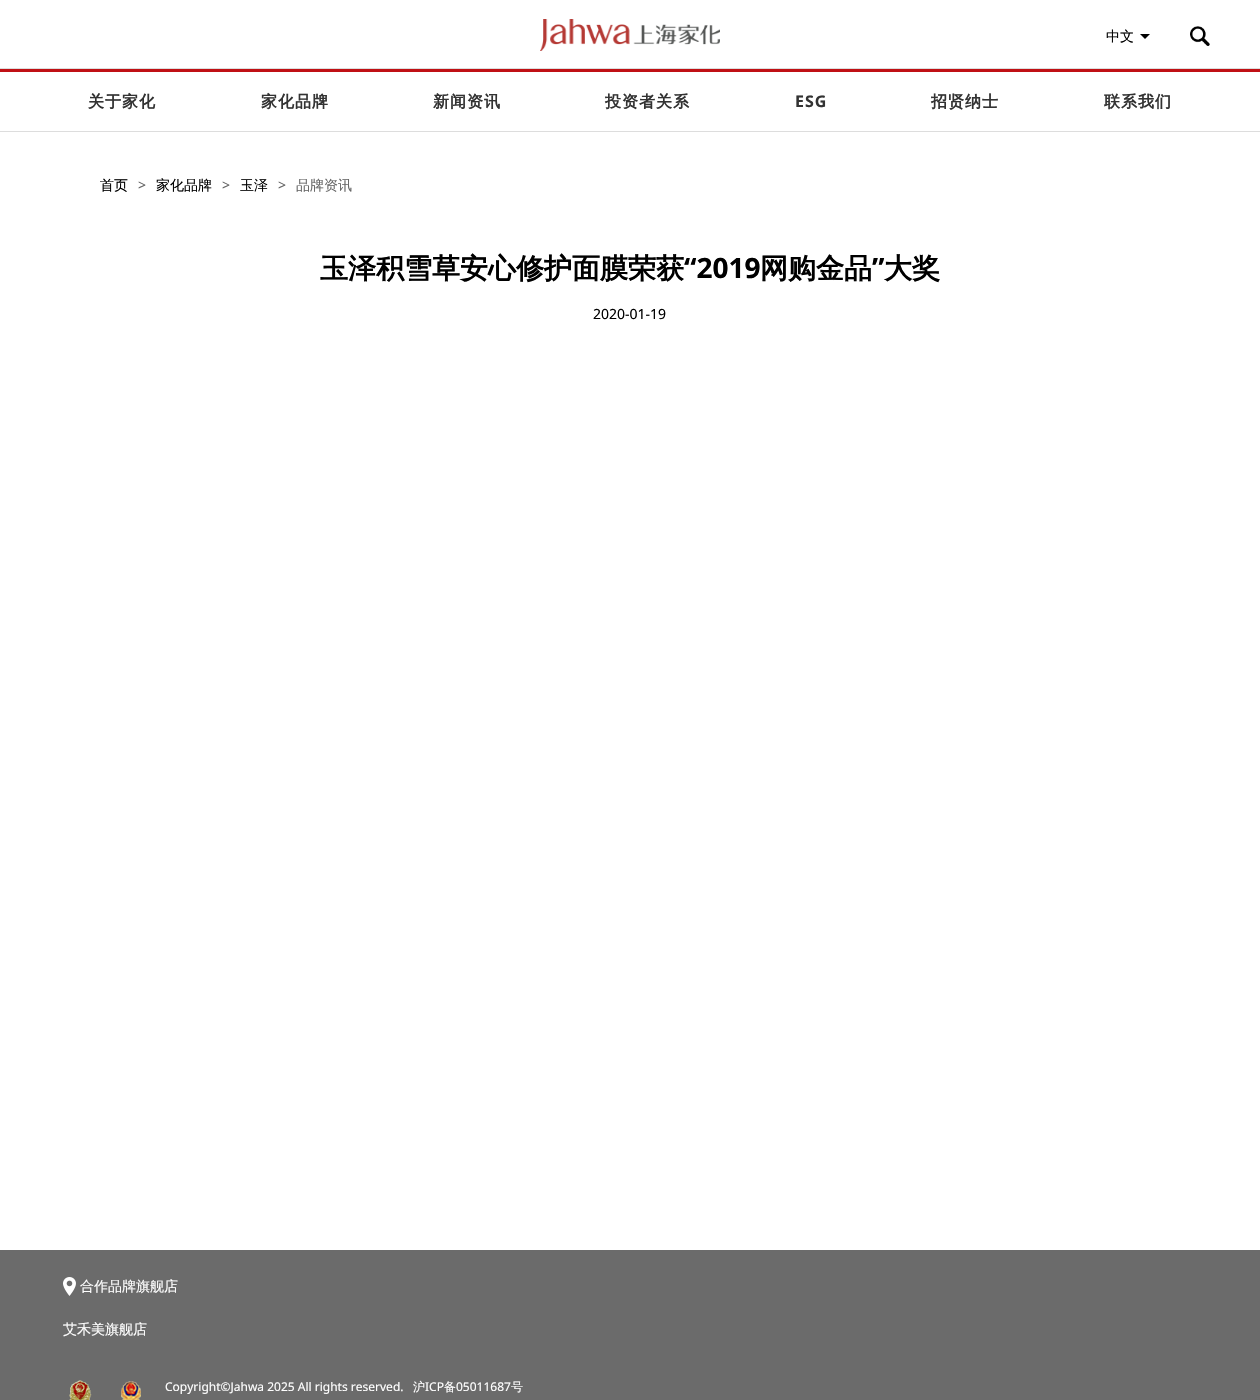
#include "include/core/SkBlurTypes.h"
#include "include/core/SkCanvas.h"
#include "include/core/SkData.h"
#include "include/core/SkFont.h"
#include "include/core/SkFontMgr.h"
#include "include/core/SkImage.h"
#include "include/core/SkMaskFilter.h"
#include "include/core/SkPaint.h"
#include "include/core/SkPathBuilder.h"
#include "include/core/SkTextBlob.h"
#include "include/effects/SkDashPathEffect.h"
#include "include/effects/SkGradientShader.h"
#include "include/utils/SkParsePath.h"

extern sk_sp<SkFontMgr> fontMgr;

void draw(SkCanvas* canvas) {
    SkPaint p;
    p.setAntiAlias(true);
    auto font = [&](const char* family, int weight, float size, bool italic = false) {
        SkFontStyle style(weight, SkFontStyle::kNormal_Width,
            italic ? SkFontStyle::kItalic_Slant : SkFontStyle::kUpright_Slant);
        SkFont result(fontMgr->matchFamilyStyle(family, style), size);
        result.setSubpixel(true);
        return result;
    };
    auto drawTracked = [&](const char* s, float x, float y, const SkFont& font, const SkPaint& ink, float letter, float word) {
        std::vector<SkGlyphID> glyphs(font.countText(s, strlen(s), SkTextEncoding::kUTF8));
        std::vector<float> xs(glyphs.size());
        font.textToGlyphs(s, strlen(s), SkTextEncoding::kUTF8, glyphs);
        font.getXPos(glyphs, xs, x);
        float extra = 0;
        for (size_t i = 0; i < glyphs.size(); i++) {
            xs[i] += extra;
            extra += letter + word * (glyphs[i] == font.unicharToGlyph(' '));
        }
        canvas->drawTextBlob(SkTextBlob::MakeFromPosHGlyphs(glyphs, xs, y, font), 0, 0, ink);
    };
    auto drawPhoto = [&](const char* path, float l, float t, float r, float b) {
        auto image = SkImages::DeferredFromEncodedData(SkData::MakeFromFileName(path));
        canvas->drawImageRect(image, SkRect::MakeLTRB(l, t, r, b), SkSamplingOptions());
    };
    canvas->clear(0xFFFFFFFF);
    p.setColor(0xFFDDDDDD);
    canvas->drawRect(SkRect::MakeLTRB(0, 68, 1260, 69), p);
    drawPhoto("media/1.png", 540, 19, 720, 51);
    auto font1 = font("WenQuanYi Zen Hei", 500, 14);
    p.setColor(0xFF000000);
    canvas->drawString("中文", 1106, 41, font1, p);
    canvas->drawPath(SkPathBuilder().moveTo(1140, 34).lineTo(1150, 34).lineTo(1145, 39).close().detach(), p);
    drawPhoto("media/2.png", 1190, 26, 1210, 46);
    p.setColor(0xFFC01015);
    canvas->drawRect(SkRect::MakeLTRB(0, 69, 1260, 72), p);
    p.setColor(0xFFDDDDDD);
    canvas->drawRect(SkRect::MakeLTRB(0, 131, 1260, 132), p);
    auto font2 = font("WenQuanYi Zen Hei", 700, 16);
    p.setColor(0xFF333333);
    {
        const struct { const char* s; float x, y; } items[] = {
            {"关于家化", 88, 107},
            {"家化品牌", 261, 107},
            {"新闻资讯", 433, 107},
            {"投资者关系", 605, 107},
        };
        for (auto [s, x, y] : items) {
            drawTracked(s, x, y, font2, p, 1, 0);
        }
    }
    auto font3 = font("Noto Sans", 700, 16);
    drawTracked("ESG", 795, 107, font3, p, 1, 0);
    drawTracked("招贤纳士", 931, 107, font2, p, 1, 0);
    drawTracked("联系我们", 1104, 107, font2, p, 1, 0);
    p.setColor(0xFF000000);
    canvas->drawString("首页", 100, 190, font1, p);
    auto font4 = font("Noto Sans", 400, 14);
    p.setColor(0xFF666666);
    canvas->drawString(">", 138, 190, font4, p);
    p.setColor(0xFF000000);
    canvas->drawString("家化品牌", 156, 190, font1, p);
    p.setColor(0xFF666666);
    canvas->drawString(">", 222, 190, font4, p);
    p.setColor(0xFF000000);
    canvas->drawString("玉泽", 240, 190, font1, p);
    p.setColor(0xFF666666);
    canvas->drawString(">", 278, 190, font4, p);
    canvas->drawString("品牌资讯", 296, 190, font1, p);
    auto font5 = font("WenQuanYi Zen Hei", 700, 28);
    p.setColor(0xFF000000);
    canvas->drawString("玉泽积雪草安心修护面膜荣获", 320, 278, font5, p);
    auto font6 = font("Noto Sans", 700, 28);
    canvas->drawString("“2019", 684, 278, font6, p);
    canvas->drawString("网购金品", 760, 278, font5, p);
    canvas->drawString("”", 872, 278, font6, p);
    canvas->drawString("大奖", 884, 278, font5, p);
    canvas->drawString("2020-01-19", 593, 319, font4, p);
    p.setColor(0xFF6B6B6B);
    canvas->drawRect(SkRect::MakeLTRB(0, 1250, 1260, 1400), p);
    drawPhoto("media/3.png", 63, 1277, 76, 1296);
    p.setColor(0xFFFFFFFF);
    canvas->drawString("合作品牌旗舰店", 80, 1291, font1, p);
    canvas->drawString("艾禾美旗舰店", 63, 1334, font1, p);
    drawPhoto("media/4.png", 69, 1380, 92, 1400);
    drawPhoto("media/5.png", 121, 1381, 141, 1400);
    auto font7 = font("Noto Sans", 400, 12);
    canvas->drawString("Copyright©Jahwa 2025 All rights reserved.", 165, 1391, font7, p);
    auto font8 = font("WenQuanYi Zen Hei", 500, 12);
    canvas->drawString("沪", 413, 1391, font8, p);
    canvas->drawString("ICP", 425, 1391, font7, p);
    canvas->drawString("备", 444, 1391, font8, p);
    canvas->drawString("05011687", 456, 1391, font7, p);
    canvas->drawString("号", 511, 1391, font8, p);
}
